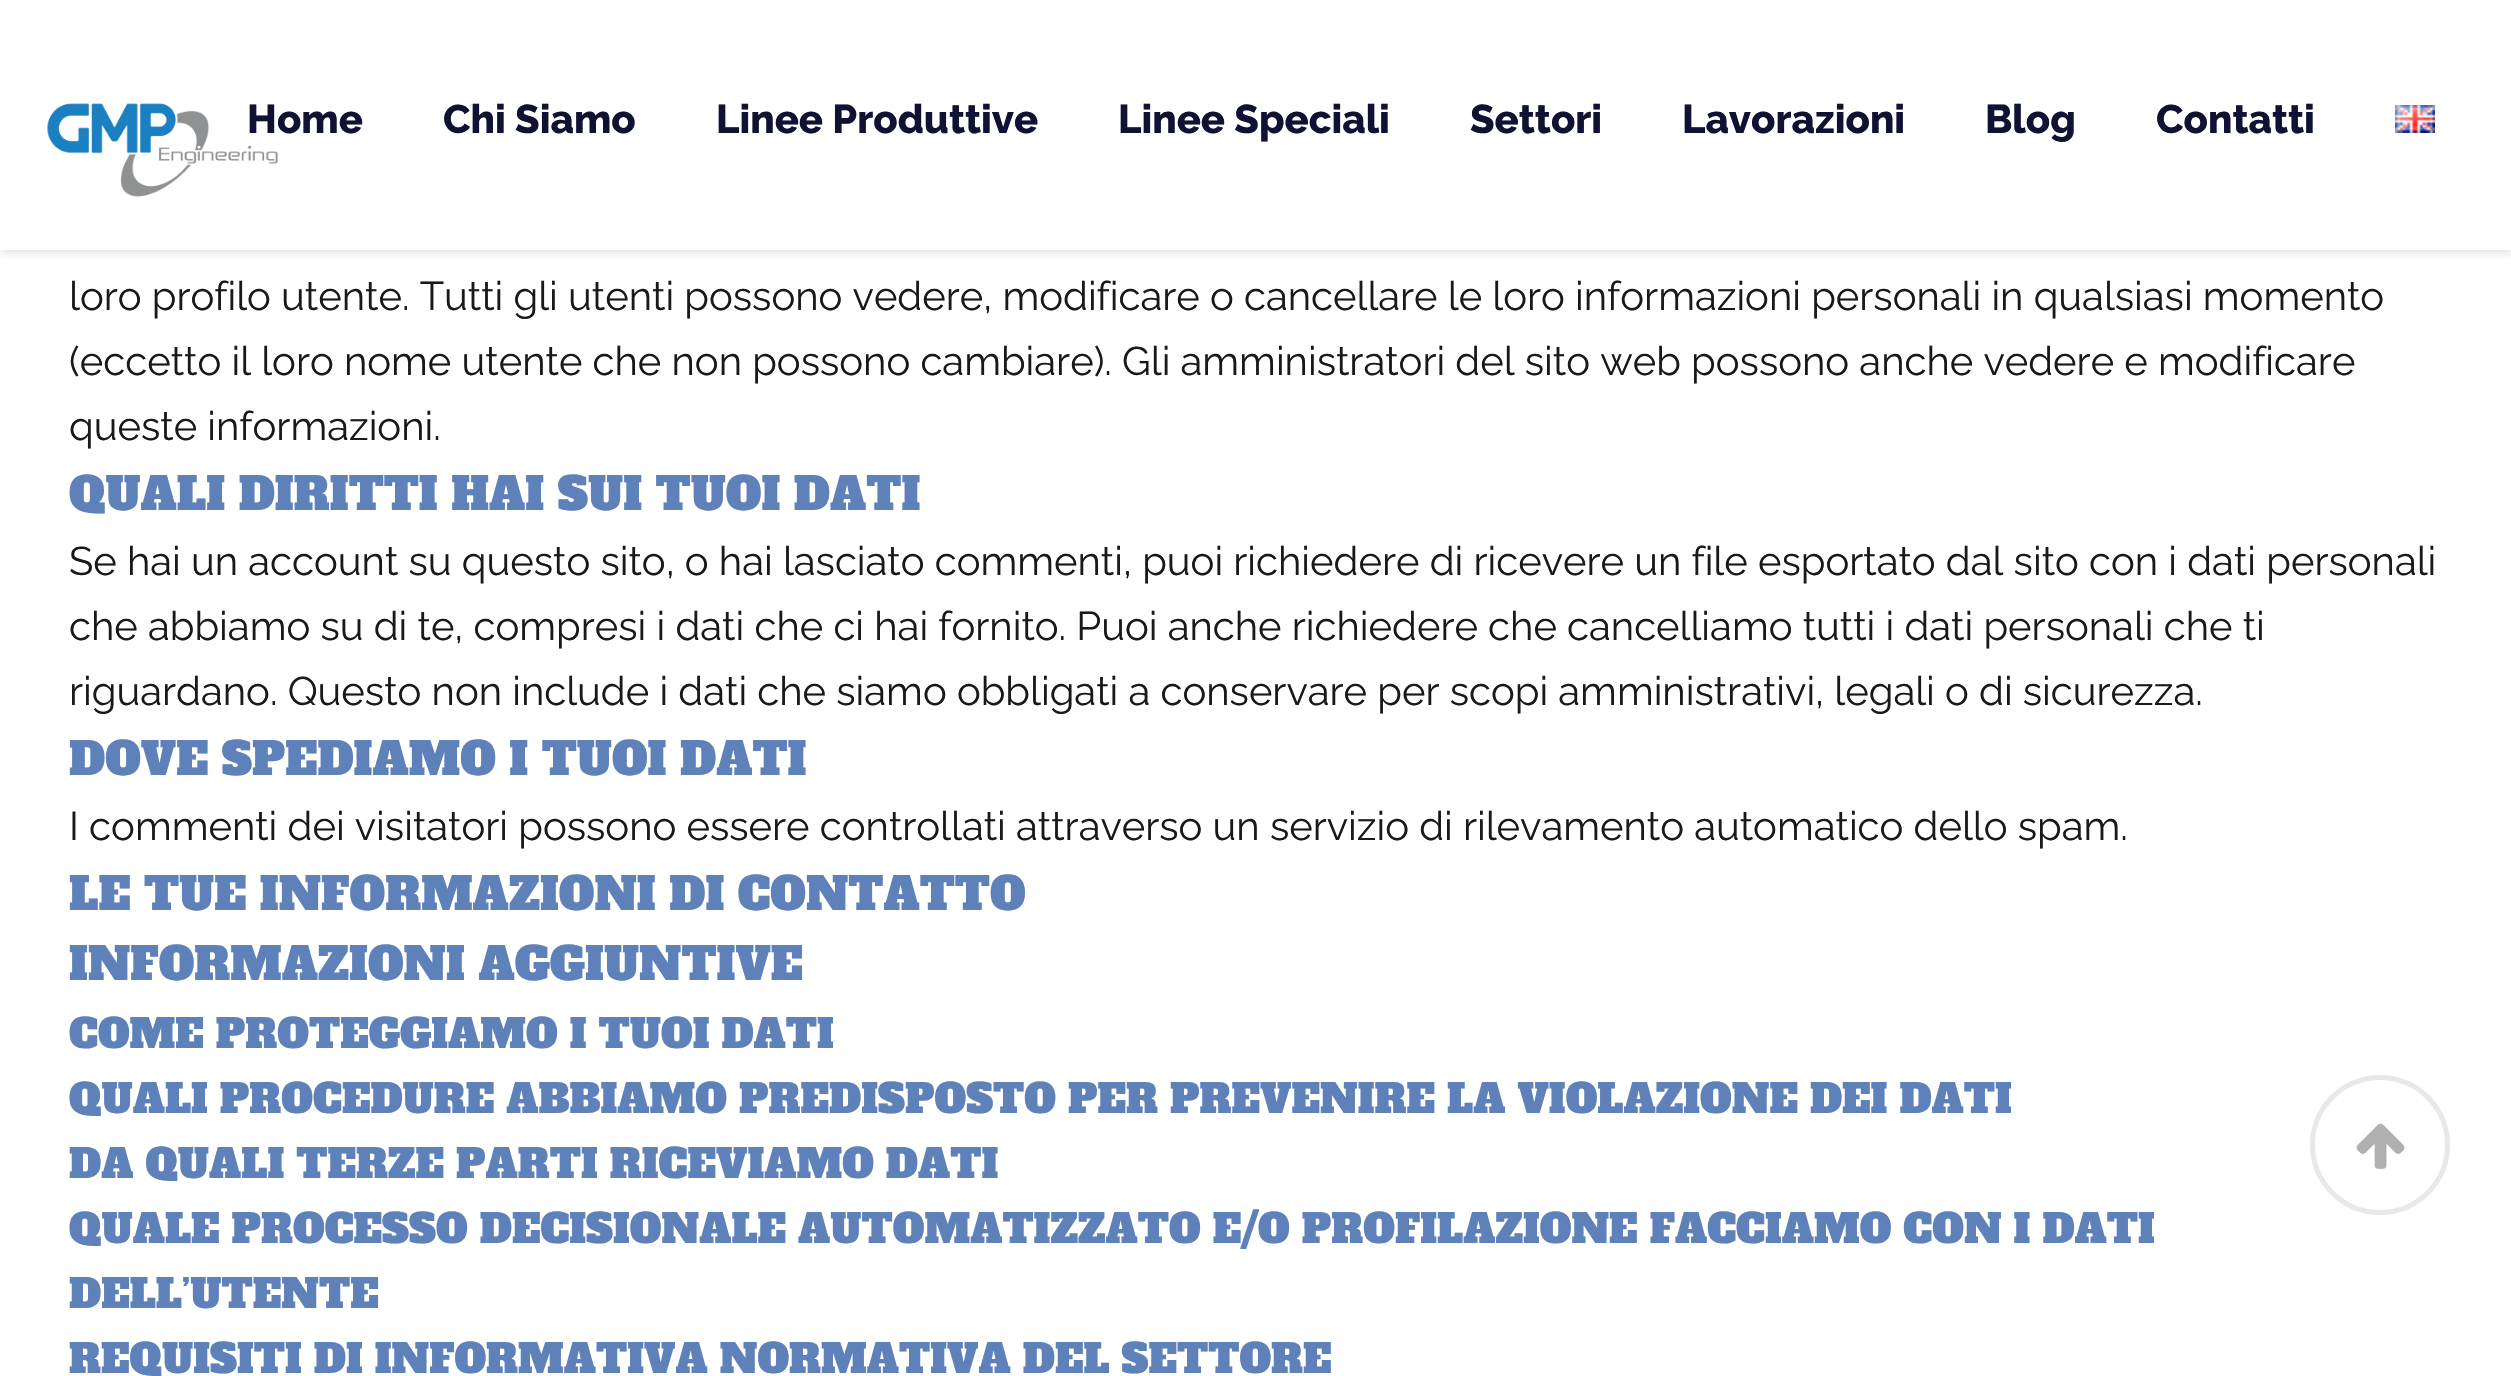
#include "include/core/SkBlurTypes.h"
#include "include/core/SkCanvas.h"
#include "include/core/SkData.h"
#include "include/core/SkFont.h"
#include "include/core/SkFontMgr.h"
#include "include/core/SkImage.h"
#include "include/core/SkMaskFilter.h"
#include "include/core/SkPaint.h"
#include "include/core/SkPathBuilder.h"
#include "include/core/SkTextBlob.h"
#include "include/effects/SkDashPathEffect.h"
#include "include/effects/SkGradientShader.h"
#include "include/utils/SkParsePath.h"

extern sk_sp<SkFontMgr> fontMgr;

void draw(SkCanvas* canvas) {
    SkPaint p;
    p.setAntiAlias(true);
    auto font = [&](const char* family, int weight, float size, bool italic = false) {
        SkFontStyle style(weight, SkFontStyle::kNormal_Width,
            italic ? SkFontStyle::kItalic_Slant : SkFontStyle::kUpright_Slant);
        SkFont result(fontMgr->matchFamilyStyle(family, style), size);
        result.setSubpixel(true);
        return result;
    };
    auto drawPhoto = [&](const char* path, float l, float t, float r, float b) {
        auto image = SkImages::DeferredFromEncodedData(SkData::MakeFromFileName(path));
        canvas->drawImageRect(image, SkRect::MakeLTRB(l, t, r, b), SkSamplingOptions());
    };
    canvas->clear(0xFFFFFFFF);
    p.setColor(0x1C000000);
    p.setMaskFilter(SkMaskFilter::MakeBlur(kNormal_SkBlurStyle, 4));
    canvas->drawRect(SkRect::MakeLTRB(0, 3, 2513, 253), p);
    p.setMaskFilter(nullptr);
    p.setColor(0xFFFFFFFF);
    canvas->drawRect(SkRect::MakeLTRB(0, 0, 2511, 250), p);
    drawPhoto("media/1.png", 47, 103, 278, 197);
    auto font1 = font("Raleway", 800, 40);
    p.setColor(0xFF0F1232);
    {
        const struct { const char* s; float x, y; } items[] = {
            {"Home", 247, 133},
            {"Chi Siamo", 443, 133},
            {"Linee Produttive", 716, 133},
            {"Linee Speciali", 1118, 133},
            {"Settori", 1470, 133},
            {"Lavorazioni", 1682, 133},
            {"Blog", 1985, 133},
            {"Contatti", 2156, 133},
        };
        for (auto [s, x, y] : items) {
            canvas->drawString(s, x, y, font1, p);
        }
    }
    drawPhoto("media/2.png", 2395, 105, 2435, 133);
    auto font2 = font("Raleway", 400, 40);
    p.setColor(0xFF191919);
    {
        const struct { const char* s; float x, y; } items[] = {
            {"loro profilo utente. Tutti gli utenti possono vedere, modificare o cancellare le loro informazioni personali in qualsiasi momento", 69, 310},
            {"(eccetto il loro nome utente che non possono cambiare). Gli amministratori del sito web possono anche vedere e modificare", 69, 375},
            {"queste informazioni.", 69, 440},
        };
        for (auto [s, x, y] : items) {
            canvas->drawString(s, x, y, font2, p);
        }
    }
    auto font3 = font("Alfa Slab One", 400, 45);
    p.setColor(0xFF5E81B9);
    canvas->drawString("QUALI DIRITTI HAI SUI TUOI DATI", 69, 510, font3, p);
    p.setColor(0xFF191919);
    {
        const struct { const char* s; float x, y; } items[] = {
            {"Se hai un account su questo sito, o hai lasciato commenti, puoi richiedere di ricevere un file esportato dal sito con i dati personali", 69, 575},
            {"che abbiamo su di te, compresi i dati che ci hai fornito. Puoi anche richiedere che cancelliamo tutti i dati personali che ti", 69, 640},
            {"riguardano. Questo non include i dati che siamo obbligati a conservare per scopi amministrativi, legali o di sicurezza.", 69, 705},
        };
        for (auto [s, x, y] : items) {
            canvas->drawString(s, x, y, font2, p);
        }
    }
    p.setColor(0xFF5E81B9);
    canvas->drawString("DOVE SPEDIAMO I TUOI DATI", 69, 775, font3, p);
    p.setColor(0xFF191919);
    canvas->drawString("I commenti dei visitatori possono essere controllati attraverso un servizio di rilevamento automatico dello spam.", 69, 840, font2, p);
    p.setColor(0xFF5E81B9);
    canvas->drawString("LE TUE INFORMAZIONI DI CONTATTO", 69, 910, font3, p);
    canvas->drawString("INFORMAZIONI AGGIUNTIVE", 69, 980, font3, p);
    auto font4 = font("Alfa Slab One", 400, 40);
    {
        const struct { const char* s; float x, y; } items[] = {
            {"COME PROTEGGIAMO I TUOI DATI", 69, 1048},
            {"QUALI PROCEDURE ABBIAMO PREDISPOSTO PER PREVENIRE LA VIOLAZIONE DEI DATI", 69, 1113},
            {"DA QUALI TERZE PARTI RICEVIAMO DATI", 69, 1178},
            {"QUALE PROCESSO DECISIONALE AUTOMATIZZATO E/O PROFILAZIONE FACCIAMO CON I DATI", 69, 1243},
            {"DELL’UTENTE", 69, 1308},
            {"REQUISITI DI INFORMATIVA NORMATIVA DEL SETTORE", 69, 1373},
        };
        for (auto [s, x, y] : items) {
            canvas->drawString(s, x, y, font4, p);
        }
    }
    p.setStyle(SkPaint::kStroke_Style);
    p.setStrokeWidth(5);
    p.setColor(0xFFE8E8E8);
    canvas->drawCircle(2380, 1145, 67.5f, p);
    drawPhoto("media/3.png", 2356, 1123, 2405, 1169);
}
